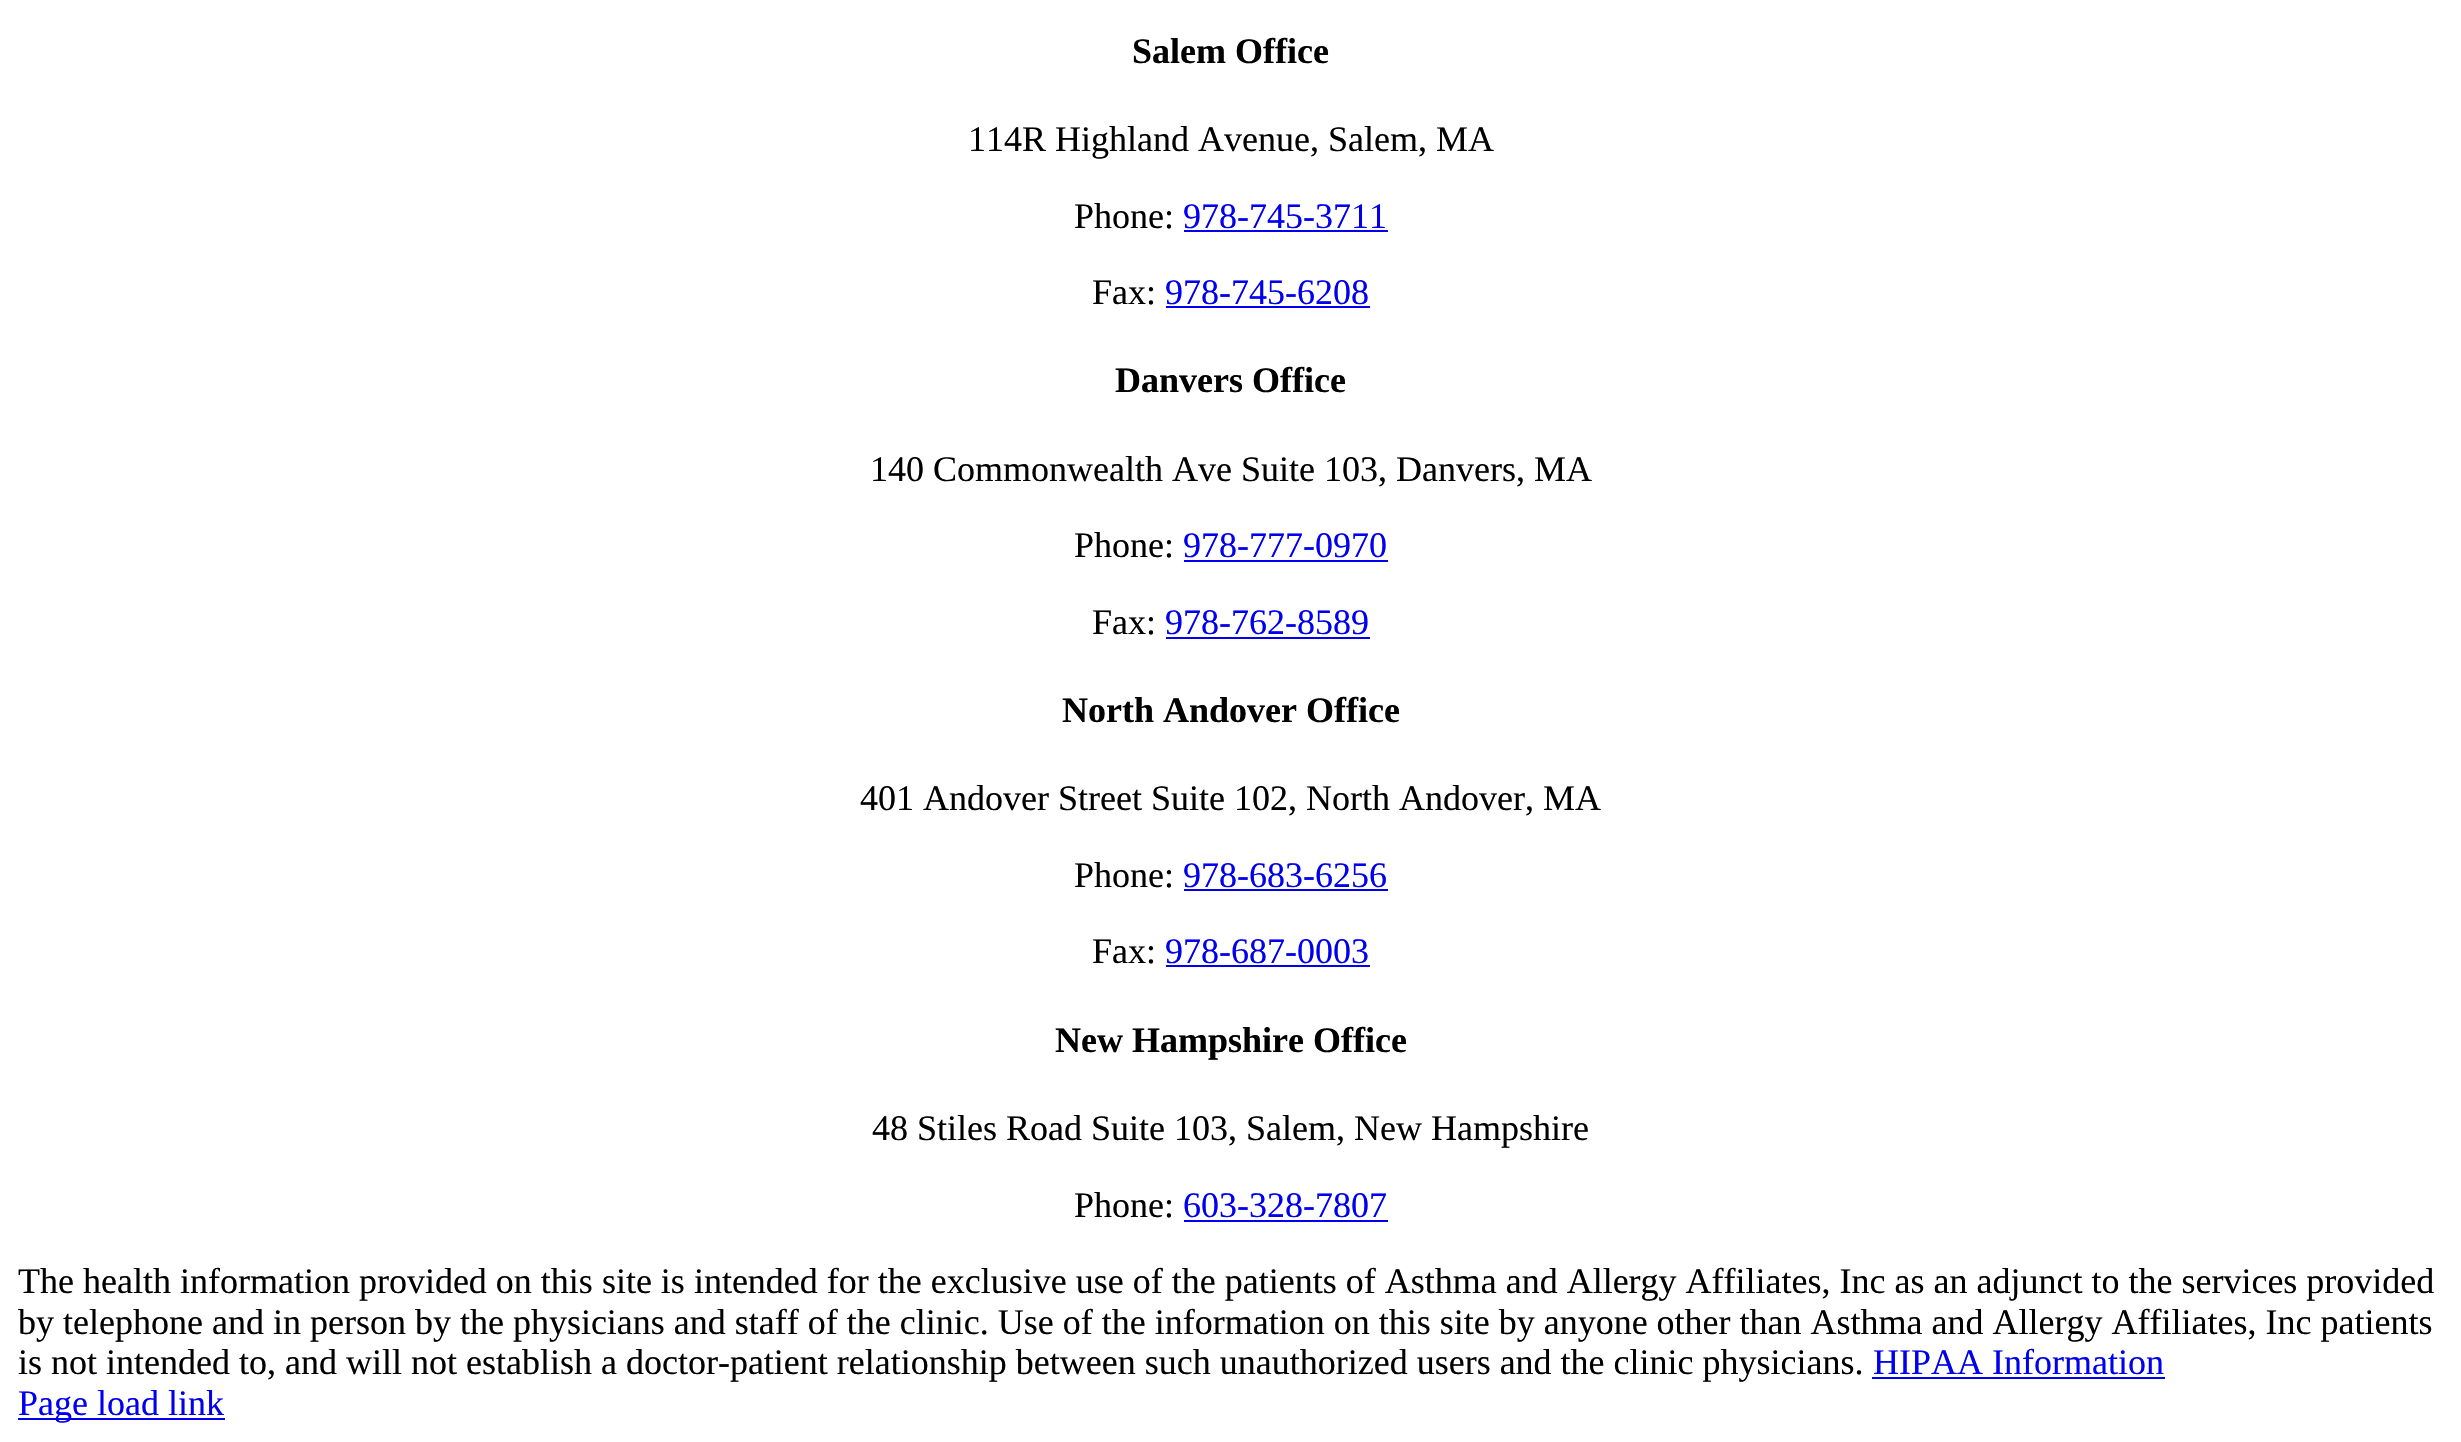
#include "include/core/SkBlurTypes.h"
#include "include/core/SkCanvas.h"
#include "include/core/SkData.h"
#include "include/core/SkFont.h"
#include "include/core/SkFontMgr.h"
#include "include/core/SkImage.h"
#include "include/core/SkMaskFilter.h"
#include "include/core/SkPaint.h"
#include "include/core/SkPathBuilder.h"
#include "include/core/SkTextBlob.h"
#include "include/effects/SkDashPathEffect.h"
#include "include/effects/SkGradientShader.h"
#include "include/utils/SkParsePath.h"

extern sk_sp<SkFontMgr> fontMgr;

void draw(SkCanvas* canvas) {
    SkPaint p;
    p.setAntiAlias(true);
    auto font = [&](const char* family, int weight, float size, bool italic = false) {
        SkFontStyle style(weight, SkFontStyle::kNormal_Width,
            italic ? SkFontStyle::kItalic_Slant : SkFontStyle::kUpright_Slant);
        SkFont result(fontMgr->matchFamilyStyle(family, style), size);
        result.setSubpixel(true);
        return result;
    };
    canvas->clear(0xFFFFFFFF);
    auto font1 = font("Liberation Serif", 700, 36);
    p.setColor(0xFF000000);
    canvas->drawString("Salem Office", 1132, 63, font1, p);
    auto font2 = font("Liberation Serif", 400, 36);
    canvas->drawString("114R Highland Avenue, Salem, MA", 968, 151, font2, p);
    canvas->drawString("Phone:", 1074, 228, font2, p);
    p.setColor(0xFF0000EE);
    canvas->drawString("978-745-3711", 1183, 228, font2, p);
    canvas->drawRect(SkRect::MakeLTRB(1184, 230, 1388, 232), p);
    p.setColor(0xFF000000);
    canvas->drawString("Fax:", 1092, 304, font2, p);
    p.setColor(0xFF0000EE);
    canvas->drawString("978-745-6208", 1165, 304, font2, p);
    canvas->drawRect(SkRect::MakeLTRB(1166, 306, 1370, 308), p);
    p.setColor(0xFF000000);
    canvas->drawString("Danvers Office", 1115, 392, font1, p);
    canvas->drawString("140 Commonwealth Ave Suite 103, Danvers, MA", 870, 481, font2, p);
    canvas->drawString("Phone:", 1074, 557, font2, p);
    p.setColor(0xFF0000EE);
    canvas->drawString("978-777-0970", 1183, 557, font2, p);
    canvas->drawRect(SkRect::MakeLTRB(1184, 560, 1388, 562), p);
    p.setColor(0xFF000000);
    canvas->drawString("Fax:", 1092, 634, font2, p);
    p.setColor(0xFF0000EE);
    canvas->drawString("978-762-8589", 1165, 634, font2, p);
    canvas->drawRect(SkRect::MakeLTRB(1166, 637, 1370, 639), p);
    p.setColor(0xFF000000);
    canvas->drawString("North Andover Office", 1062, 722, font1, p);
    canvas->drawString("401 Andover Street Suite 102, North Andover, MA", 860, 810, font2, p);
    canvas->drawString("Phone:", 1074, 887, font2, p);
    p.setColor(0xFF0000EE);
    canvas->drawString("978-683-6256", 1183, 887, font2, p);
    canvas->drawRect(SkRect::MakeLTRB(1184, 889, 1388, 891), p);
    p.setColor(0xFF000000);
    canvas->drawString("Fax:", 1092, 963, font2, p);
    p.setColor(0xFF0000EE);
    canvas->drawString("978-687-0003", 1165, 963, font2, p);
    canvas->drawRect(SkRect::MakeLTRB(1166, 965, 1370, 967), p);
    p.setColor(0xFF000000);
    canvas->drawString("New Hampshire Office", 1055, 1052, font1, p);
    canvas->drawString("48 Stiles Road Suite 103, Salem, New Hampshire", 872, 1140, font2, p);
    canvas->drawString("Phone:", 1074, 1217, font2, p);
    p.setColor(0xFF0000EE);
    canvas->drawString("603-328-7807", 1183, 1217, font2, p);
    canvas->drawRect(SkRect::MakeLTRB(1184, 1220, 1388, 1222), p);
    p.setColor(0xFF000000);
    {
        const struct { const char* s; float x, y; } items[] = {
            {"The health information provided on this site is intended for the exclusive use of the patients of Asthma and Allergy Affiliates, Inc as an adjunct to the services provided", 18, 1293},
            {"by telephone and in person by the physicians and staff of the clinic. Use of the information on this site by anyone other than Asthma and Allergy Affiliates, Inc patients", 18, 1334},
            {"is not intended to, and will not establish a doctor-patient relationship between such unauthorized users and the clinic physicians.", 18, 1374},
        };
        for (auto [s, x, y] : items) {
            canvas->drawString(s, x, y, font2, p);
        }
    }
    p.setColor(0xFF0000EE);
    canvas->drawString("HIPAA Information", 1873, 1374, font2, p);
    canvas->drawRect(SkRect::MakeLTRB(1872, 1377, 2165, 1379), p);
    canvas->drawRect(SkRect::MakeLTRB(18, 1418, 225, 1420), p);
    canvas->drawString("Page load link", 18, 1415, font2, p);
}
